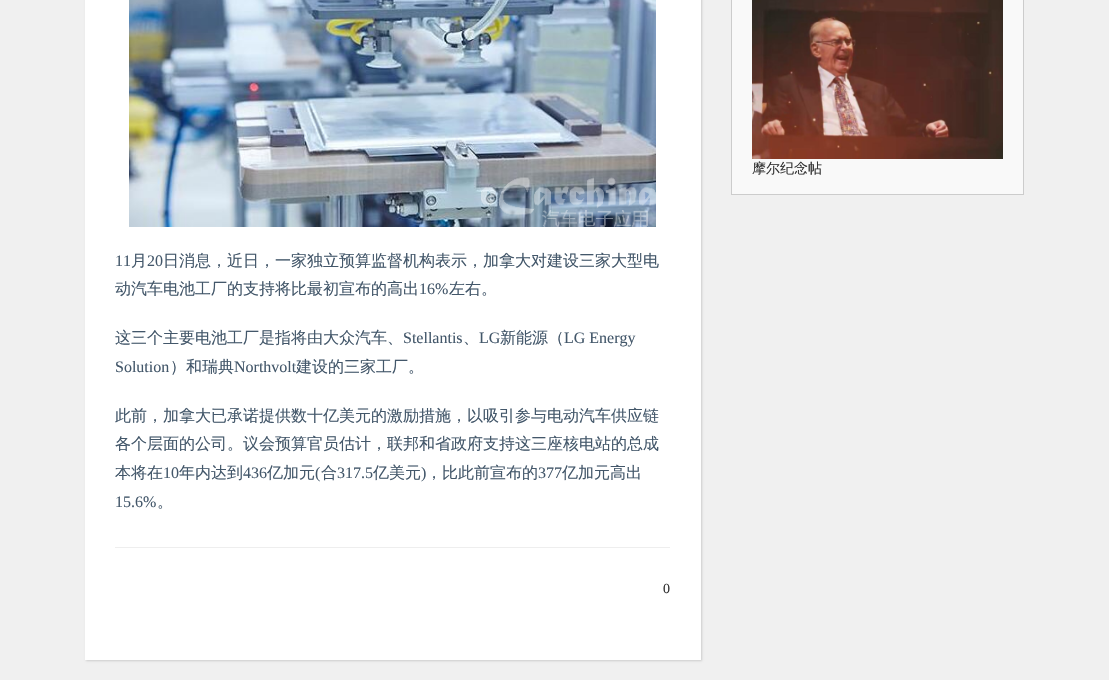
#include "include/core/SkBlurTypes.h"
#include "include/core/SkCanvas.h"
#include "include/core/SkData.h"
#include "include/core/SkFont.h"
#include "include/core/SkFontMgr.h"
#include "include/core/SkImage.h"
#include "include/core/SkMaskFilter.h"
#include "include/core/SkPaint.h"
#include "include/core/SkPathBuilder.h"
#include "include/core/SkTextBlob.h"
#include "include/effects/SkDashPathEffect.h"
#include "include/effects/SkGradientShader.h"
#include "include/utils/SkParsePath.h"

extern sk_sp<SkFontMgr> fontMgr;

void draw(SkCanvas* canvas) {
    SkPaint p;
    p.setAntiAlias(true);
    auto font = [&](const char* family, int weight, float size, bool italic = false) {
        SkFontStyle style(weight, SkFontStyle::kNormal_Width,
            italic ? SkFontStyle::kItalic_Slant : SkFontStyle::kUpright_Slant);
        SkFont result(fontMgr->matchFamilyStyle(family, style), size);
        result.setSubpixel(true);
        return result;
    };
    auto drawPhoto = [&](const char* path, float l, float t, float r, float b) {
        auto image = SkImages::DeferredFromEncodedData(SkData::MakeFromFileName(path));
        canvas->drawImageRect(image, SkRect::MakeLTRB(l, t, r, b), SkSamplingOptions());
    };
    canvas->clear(0xFFF0F0F0);
    p.setColor(0xFFF9F9F9);
    canvas->drawRect(SkRect::MakeLTRB(731.5f, -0.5f, 1023.5f, 194.5f), p);
    p.setStyle(SkPaint::kStroke_Style);
    p.setStrokeWidth(1);
    p.setColor(0xFFCCCCCC);
    canvas->drawRect(SkRect::MakeLTRB(731.5f, -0.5f, 1023.5f, 194.5f), p);
    drawPhoto("media/1.png", 752, 0, 1003, 159);
    auto font1 = font("WenQuanYi Zen Hei", 500, 14);
    p.setStyle(SkPaint::kFill_Style);
    p.setColor(0xFF333333);
    canvas->drawString("摩尔纪念帖", 752, 173, font1, p);
    p.setColor(0xFFCCCCCC);
    p.setMaskFilter(SkMaskFilter::MakeBlur(kNormal_SkBlurStyle, 1));
    canvas->drawRect(SkRect::MakeLTRB(86, -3, 702, 661), p);
    p.setMaskFilter(nullptr);
    p.setColor(0xFFFFFFFF);
    canvas->drawRect(SkRect::MakeLTRB(85, 0, 701, 660), p);
    drawPhoto("media/2.png", 129, 0, 656, 227);
    auto font2 = font("Liberation Serif", 400, 16);
    p.setColor(0xFF43576A);
    canvas->drawString("11", 115, 266, font2, p);
    auto font3 = font("WenQuanYi Zen Hei", 500, 16);
    canvas->drawString("月", 131, 266, font3, p);
    canvas->drawString("20", 147, 266, font2, p);
    canvas->drawString("日消息，近日，一家独立预算监督机构表示，加拿大对建设三家大型电", 163, 266, font3, p);
    canvas->drawString("动汽车电池工厂的支持将比最初宣布的高出", 115, 294, font3, p);
    canvas->drawString("16%", 419, 294, font2, p);
    canvas->drawString("左右。", 449, 294, font3, p);
    canvas->drawString("这三个主要电池工厂是指将由大众汽车、", 115, 343, font3, p);
    canvas->drawString("Stellantis", 403, 343, font2, p);
    canvas->drawString("、", 463, 343, font3, p);
    canvas->drawString("LG", 479, 343, font2, p);
    canvas->drawString("新能源（", 500, 343, font3, p);
    canvas->drawString("LG Energy", 564, 343, font2, p);
    canvas->drawString("Solution", 115, 372, font2, p);
    canvas->drawString("）和瑞典", 170, 372, font3, p);
    canvas->drawString("Northvolt", 234, 372, font2, p);
    {
        const struct { const char* s; float x, y; } items[] = {
            {"建设的三家工厂。", 296, 372},
            {"此前，加拿大已承诺提供数十亿美元的激励措施，以吸引参与电动汽车供应链", 115, 421},
            {"各个层面的公司。议会预算官员估计，联邦和省政府支持这三座核电站的总成", 115, 449},
            {"本将在", 115, 478},
        };
        for (auto [s, x, y] : items) {
            canvas->drawString(s, x, y, font3, p);
        }
    }
    canvas->drawString("10", 163, 478, font2, p);
    canvas->drawString("年内达到", 179, 478, font3, p);
    canvas->drawString("436", 243, 478, font2, p);
    canvas->drawString("亿加元", 267, 478, font3, p);
    canvas->drawString("(", 315, 478, font2, p);
    canvas->drawString("合", 321, 478, font3, p);
    canvas->drawString("317.5", 337, 478, font2, p);
    canvas->drawString("亿美元", 373, 478, font3, p);
    canvas->drawString(")", 421, 478, font2, p);
    canvas->drawString("，比此前宣布的", 426, 478, font3, p);
    canvas->drawString("377", 538, 478, font2, p);
    canvas->drawString("亿加元高出", 562, 478, font3, p);
    canvas->drawString("15.6%", 115, 507, font2, p);
    canvas->drawString("。", 157, 507, font3, p);
    p.setColor(0xFFEEEEEE);
    canvas->drawRect(SkRect::MakeLTRB(115, 547, 670, 548), p);
    auto font4 = font("Liberation Serif", 400, 14);
    p.setColor(0xFF333333);
    canvas->drawString("0", 663, 593, font4, p);
}
